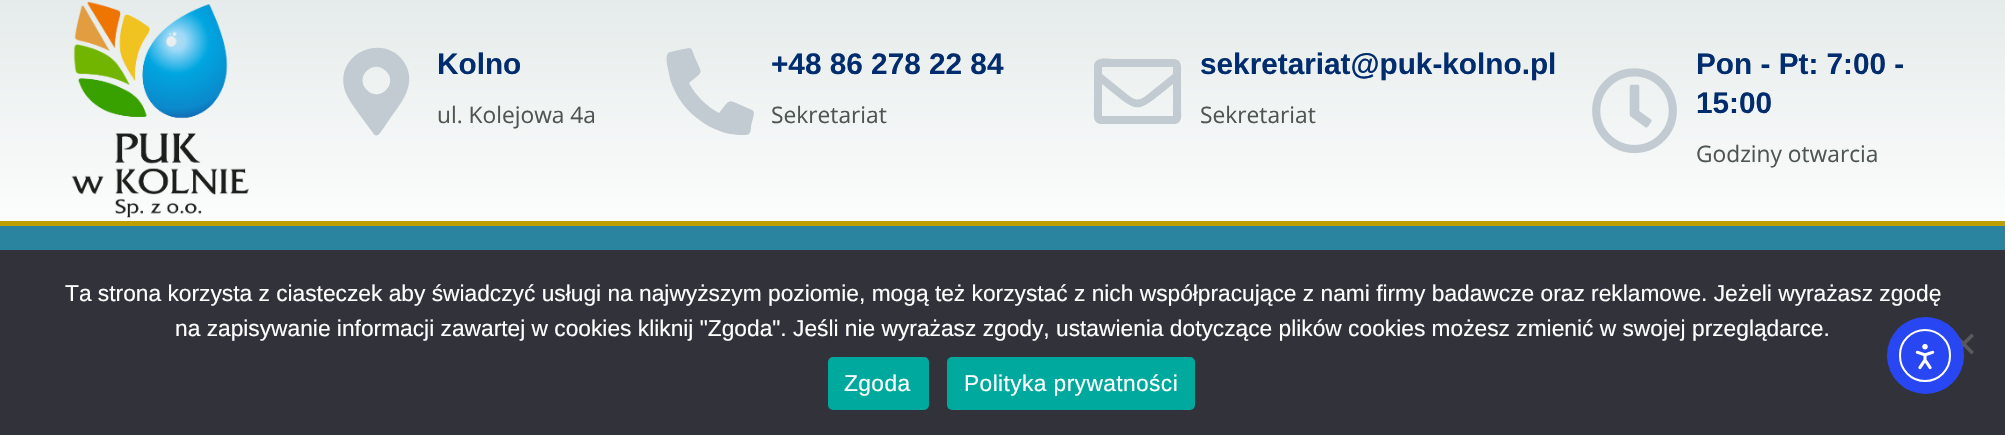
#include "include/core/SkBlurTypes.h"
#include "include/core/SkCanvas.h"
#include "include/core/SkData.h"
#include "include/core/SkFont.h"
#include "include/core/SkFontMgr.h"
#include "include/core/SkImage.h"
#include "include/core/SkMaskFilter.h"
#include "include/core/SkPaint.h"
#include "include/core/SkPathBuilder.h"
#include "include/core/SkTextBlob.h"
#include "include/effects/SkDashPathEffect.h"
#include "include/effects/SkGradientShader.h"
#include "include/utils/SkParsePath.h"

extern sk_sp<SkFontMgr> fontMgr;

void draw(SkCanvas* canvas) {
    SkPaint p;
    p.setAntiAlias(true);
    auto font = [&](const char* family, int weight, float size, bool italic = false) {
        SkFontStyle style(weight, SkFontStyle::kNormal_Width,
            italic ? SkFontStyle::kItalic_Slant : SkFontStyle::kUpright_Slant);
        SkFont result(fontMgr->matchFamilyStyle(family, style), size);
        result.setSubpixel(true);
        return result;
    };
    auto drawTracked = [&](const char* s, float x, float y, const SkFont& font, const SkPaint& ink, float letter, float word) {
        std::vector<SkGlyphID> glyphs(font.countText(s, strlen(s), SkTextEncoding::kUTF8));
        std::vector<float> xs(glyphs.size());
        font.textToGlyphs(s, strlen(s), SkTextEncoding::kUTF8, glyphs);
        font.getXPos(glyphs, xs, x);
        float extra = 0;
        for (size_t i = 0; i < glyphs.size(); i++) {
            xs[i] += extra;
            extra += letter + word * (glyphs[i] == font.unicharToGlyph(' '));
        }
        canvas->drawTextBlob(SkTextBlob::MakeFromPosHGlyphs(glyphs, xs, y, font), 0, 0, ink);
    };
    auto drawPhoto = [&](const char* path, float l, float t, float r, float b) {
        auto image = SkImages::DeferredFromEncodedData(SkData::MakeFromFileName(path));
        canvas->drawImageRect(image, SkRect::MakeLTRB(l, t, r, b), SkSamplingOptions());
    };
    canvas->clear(0xFFFFFFFF);
    {
        const SkColor colors[] = {0xFFE2E9E8, 0xFFFFFFFF};
        const float stops[] = {0, 1};
        const SkPoint ends[] = {{1003, -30}, {1003, 250}};
        p.setShader(SkGradientShader::MakeLinear(ends, colors, stops, 2, SkTileMode::kClamp));
        p.setAlpha(255);
    }
    canvas->drawRect(SkRect::MakeLTRB(0, 0, 2005, 221), p);
    drawPhoto("media/1.png", 71, 1, 249, 218);
    p.setShader(nullptr);
    p.setColor(0xFFC2CBD2);
    canvas->drawPath(SkPathBuilder().moveTo(373, 133).lineTo(359, 114).cubicTo(353, 105, 346, 97, 344, 87).cubicTo(337, 52, 384, 33, 404, 62).cubicTo(418, 84, 401, 103, 389, 120).cubicTo(387, 123, 380, 134, 378, 135).cubicTo(376, 136, 374, 135, 373, 133).close().moveTo(367, 90).cubicTo(379, 103, 399, 84, 386, 71).cubicTo(373, 58, 354, 77, 367, 90).close().detach(), p);
    auto font1 = font("Liberation Sans", 700, 29.75f);
    p.setColor(0xFF012C6D);
    canvas->drawString("Kolno", 437, 74, font1, p);
    auto font2 = font("Open Sans", 400, 22.75f);
    p.setColor(0xFF4E5652);
    canvas->drawString("ul. Kolejowa 4a", 437, 123, font2, p);
    p.setColor(0xFFC2CBD2);
    canvas->drawPath(SkPathBuilder().moveTo(752, 110).cubicTo(753, 110, 754, 112, 754, 114).lineTo(751, 126).cubicTo(751, 129, 751, 135, 746, 135).cubicTo(740, 135, 737, 135, 730, 134).cubicTo(702, 128, 678, 106, 670, 79).cubicTo(669, 74, 668, 69, 667, 64).cubicTo(666, 51, 667, 53, 679, 50).cubicTo(693, 47, 690, 45, 696, 60).cubicTo(703, 75, 703, 71, 689, 83).cubicTo(696, 96, 706, 106, 719, 113).lineTo(726, 104).cubicTo(730, 100, 731, 101, 736, 103).close().detach(), p);
    p.setColor(0xFF012C6D);
    canvas->drawString("+48 86 278 22 84", 771, 74, font1, p);
    p.setColor(0xFF4E5652);
    canvas->drawString("Sekretariat", 771, 123, font2, p);
    p.setColor(0xFFC2CBD2);
    canvas->drawPath(SkPathBuilder().moveTo(1173, 59).cubicTo(1183, 59, 1181, 69, 1181, 75).lineTo(1181, 108).cubicTo(1181, 114, 1183, 123, 1175, 124).lineTo(1102, 124).cubicTo(1092, 124, 1094, 114, 1094, 108).lineTo(1094, 65).cubicTo(1096, 56, 1108, 59, 1114, 59).close().moveTo(1173, 67).lineTo(1102, 67).lineTo(1102, 74).lineTo(1128, 95).cubicTo(1136, 101, 1139, 101, 1147, 95).lineTo(1173, 74).close().moveTo(1102, 116).lineTo(1173, 116).lineTo(1173, 84).cubicTo(1134, 115, 1141, 115, 1102, 84).close().detach(), p);
    p.setColor(0xFF012C6D);
    canvas->drawString("sekretariat@puk-kolno.pl", 1200, 74, font1, p);
    p.setColor(0xFF4E5652);
    canvas->drawString("Sekretariat", 1200, 123, font2, p);
    drawPhoto("media/2.png", 1592, 68, 1677, 153);
    p.setColor(0xFF012C6D);
    canvas->drawString("Pon - Pt: 7:00 -", 1696, 74, font1, p);
    canvas->drawString("15:00", 1696, 113, font1, p);
    p.setColor(0xFF4E5652);
    canvas->drawString("Godziny otwarcia", 1696, 162, font2, p);
    {
        const struct { float l, t, r, b; SkColor color; } items[] = {
            {0, 226, 2005, 250, 0xFF2A849F},
            {0, 221, 2005, 226, 0xFFBF9F00},
            {0, 250, 2005, 435, 0xFF32323A},
        };
        for (auto [l, t, r, b, color] : items) {
            p.setColor(color);
            canvas->drawRect(SkRect::MakeLTRB(l, t, r, b), p);
        }
    }
    auto font3 = font("Liberation Sans", 400, 22.75f);
    p.setColor(0xFFFFFFFF);
    canvas->drawString("Ta strona korzysta z ciasteczek aby świadczyć usługi na najwyższym poziomie, mogą też korzystać z nich współpracujące z nami firmy badawcze oraz reklamowe. Jeżeli wyrażasz zgodę", 65, 301, font3, p);
    canvas->drawString("na zapisywanie informacji zawartej w cookies kliknij \"Zgoda\". Jeśli nie wyrażasz zgody, ustawienia dotyczące plików cookies możesz zmienić w swojej przeglądarce.", 175, 336, font3, p);
    p.setColor(0xFF59595D);
    canvas->drawPath(SkPathBuilder().moveTo(1971.5f, 333.5f).lineTo(1974, 336).lineTo(1955.5f, 354.5f).lineTo(1953, 352).close().detach(), p);
    canvas->drawPath(SkPathBuilder().moveTo(1953, 336).lineTo(1955.5f, 333.5f).lineTo(1974, 352).lineTo(1971.5f, 354.5f).close().detach(), p);
    p.setColor(0xFF00A99D);
    canvas->drawRoundRect(SkRect::MakeLTRB(828, 357, 929, 410), 5, 5, p);
    p.setColor(0xFFFFFFFF);
    drawTracked("Zgoda", 844, 391, font3, p, 0.4f, 0);
    p.setColor(0xFF00A99D);
    canvas->drawRoundRect(SkRect::MakeLTRB(947, 357, 1195, 410), 5, 5, p);
    p.setColor(0xFFFFFFFF);
    drawTracked("Polityka prywatności", 964, 391, font3, p, 0.4f, 0);
    p.setColor(0xFF2847F3);
    canvas->drawCircle(1925.5f, 355.5f, 38.5f, p);
    p.setStyle(SkPaint::kStroke_Style);
    p.setStrokeWidth(2);
    p.setColor(0xFFFFFFFF);
    canvas->drawRoundRect(SkRect::MakeLTRB(1900, 330, 1950, 381), 25, 25, p);
    drawPhoto("media/3.png", 1915, 343, 1935, 370);
}
